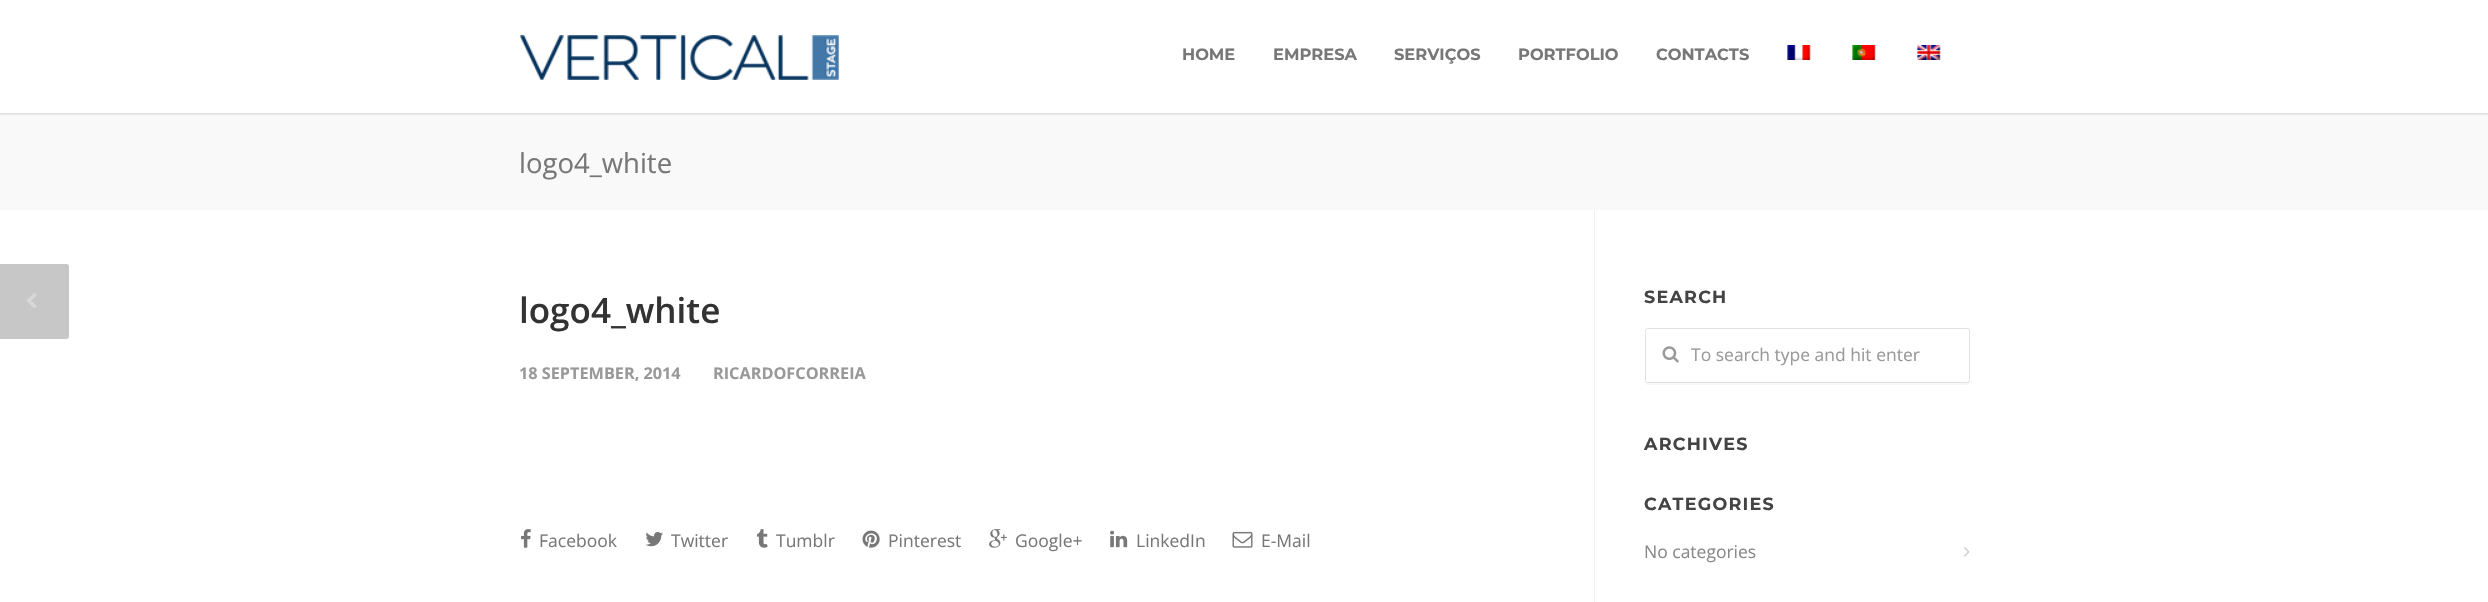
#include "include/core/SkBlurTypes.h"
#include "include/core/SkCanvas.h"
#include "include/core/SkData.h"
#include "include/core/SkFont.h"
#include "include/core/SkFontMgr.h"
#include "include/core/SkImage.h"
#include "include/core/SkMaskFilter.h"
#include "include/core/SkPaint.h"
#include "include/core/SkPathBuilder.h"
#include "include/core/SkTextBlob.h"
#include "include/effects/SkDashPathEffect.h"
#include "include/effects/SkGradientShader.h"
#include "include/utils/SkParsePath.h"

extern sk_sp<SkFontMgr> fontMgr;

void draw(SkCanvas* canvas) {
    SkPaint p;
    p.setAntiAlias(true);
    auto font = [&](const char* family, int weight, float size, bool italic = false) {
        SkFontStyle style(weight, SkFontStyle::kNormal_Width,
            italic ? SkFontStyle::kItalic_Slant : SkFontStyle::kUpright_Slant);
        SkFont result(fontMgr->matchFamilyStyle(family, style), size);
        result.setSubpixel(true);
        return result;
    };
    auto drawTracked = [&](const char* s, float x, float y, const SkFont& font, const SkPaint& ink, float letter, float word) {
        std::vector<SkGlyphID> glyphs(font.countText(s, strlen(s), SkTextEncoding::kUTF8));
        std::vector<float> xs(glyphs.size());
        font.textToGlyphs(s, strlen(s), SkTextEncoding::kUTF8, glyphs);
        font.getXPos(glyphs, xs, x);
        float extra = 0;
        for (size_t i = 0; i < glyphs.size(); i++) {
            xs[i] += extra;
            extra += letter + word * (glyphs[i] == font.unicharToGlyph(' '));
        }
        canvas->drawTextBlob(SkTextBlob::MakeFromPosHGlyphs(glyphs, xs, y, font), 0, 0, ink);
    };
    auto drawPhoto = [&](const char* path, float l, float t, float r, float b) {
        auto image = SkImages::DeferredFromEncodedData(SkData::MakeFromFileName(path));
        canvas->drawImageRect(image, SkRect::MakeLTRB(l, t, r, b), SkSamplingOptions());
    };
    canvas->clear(0xFFFFFFFF);
    p.setColor(0xFFF9F9F9);
    canvas->drawRect(SkRect::MakeLTRB(0, 113, 2488, 210), p);
    p.setColor(0x29000000);
    p.setMaskFilter(SkMaskFilter::MakeBlur(kNormal_SkBlurStyle, 1));
    canvas->drawRect(SkRect::MakeLTRB(-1, -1, 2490, 114), p);
    p.setMaskFilter(nullptr);
    p.setColor(0xFFFFFFFF);
    canvas->drawRect(SkRect::MakeLTRB(0, 0, 2488, 113), p);
    drawPhoto("media/1.png", 519, 35, 839, 80);
    auto font1 = font("Montserrat", 700, 16.25f);
    p.setColor(0xFF777777);
    {
        const struct { const char* s; float x, y; } items[] = {
            {"HOME", 1182, 60},
            {"EMPRESA", 1273, 60},
            {"SERVIÇOS", 1394, 60},
            {"PORTFOLIO", 1518, 60},
            {"CONTACTS", 1656, 60},
        };
        for (auto [s, x, y] : items) {
            canvas->drawString(s, x, y, font1, p);
        }
    }
    drawPhoto("media/2.png", 1787, 45, 1811, 60);
    drawPhoto("media/3.png", 1852, 45, 1876, 60);
    drawPhoto("media/4.png", 1917, 45, 1941, 60);
    auto font2 = font("Open Sans", 400, 27.5f);
    canvas->drawString("logo4_white", 519, 173, font2, p);
    p.setColor(0xFFEFEFEF);
    canvas->drawRect(SkRect::MakeLTRB(1594, 210, 1595, 602), p);
    p.setColor(0xFFC7C7C7);
    canvas->drawPath(SkPathBuilder().moveTo(-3, 264).lineTo(66.5f, 264).cubicTo(68, 264, 69, 265, 69, 266.5f).lineTo(69, 336.5f).cubicTo(69, 338, 68, 339, 66.5f, 339).lineTo(-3, 339).close().detach(), p);
    drawPhoto("media/5.png", 26, 293, 37, 309);
    auto font3 = font("Open Sans", 600, 35);
    p.setColor(0xFF333333);
    canvas->drawString("logo4_white", 519, 323, font3, p);
    auto font4 = font("Open Sans", 700, 16.25f);
    p.setColor(0xFF999999);
    canvas->drawString("18 SEPTEMBER, 2014", 519, 379, font4, p);
    canvas->drawString("RICARDOFCORREIA", 713, 379, font4, p);
    drawPhoto("media/6.png", 521, 529, 531, 548);
    auto font5 = font("Open Sans", 400, 17.5f);
    p.setColor(0xFF777777);
    canvas->drawString("Facebook", 539, 547, font5, p);
    drawPhoto("media/7.png", 645, 532, 663, 547);
    canvas->drawString("Twitter", 671, 547, font5, p);
    drawPhoto("media/8.png", 757, 529, 768, 548);
    canvas->drawString("Tumblr", 776, 547, font5, p);
    drawPhoto("media/9.png", 862, 530, 880, 548);
    canvas->drawString("Pinterest", 888, 547, font5, p);
    drawPhoto("media/10.png", 989, 529, 1007, 548);
    canvas->drawString("Google+", 1015, 547, font5, p);
    drawPhoto("media/11.png", 1110, 530, 1128, 548);
    canvas->drawString("LinkedIn", 1136, 547, font5, p);
    drawPhoto("media/12.png", 1232, 531, 1253, 548);
    canvas->drawString("E-Mail", 1261, 547, font5, p);
    auto font6 = font("Montserrat", 700, 17.5f);
    p.setColor(0xFF444444);
    drawTracked("SEARCH", 1644, 303, font6, p, 1.25f, 0);
    p.setColor(0xFFF7F7F7);
    canvas->drawPath(SkPathBuilder().moveTo(1645, 380).lineTo(1645, 382).cubicTo(1645, 384, 1646, 385, 1648, 385).lineTo(1968, 385).cubicTo(1969, 385, 1970, 384, 1970, 382).lineTo(1970, 380).cubicTo(1970, 381, 1969, 382, 1968, 382).lineTo(1648, 382).cubicTo(1646, 382, 1645, 381, 1645, 380).close().detach(), p);
    p.setColor(0xFFFFFFFF);
    canvas->drawRoundRect(SkRect::MakeLTRB(1645.5f, 328.5f, 1969.5f, 382.5f), 2, 2, p);
    p.setStyle(SkPaint::kStroke_Style);
    p.setStrokeWidth(1);
    p.setColor(0xFFE1E1E1);
    canvas->drawRoundRect(SkRect::MakeLTRB(1645.5f, 328.5f, 1969.5f, 382.5f), 2, 2, p);
    drawPhoto("media/13.png", 1662, 346, 1679, 363);
    p.setStyle(SkPaint::kFill_Style);
    p.setColor(0xFF999999);
    canvas->drawString("To search type and hit enter", 1691, 361, font5, p);
    p.setColor(0xFF444444);
    drawTracked("ARCHIVES", 1644, 450, font6, p, 1.25f, 0);
    drawTracked("CATEGORIES", 1644, 510, font6, p, 1.25f, 0);
    p.setColor(0xFF888888);
    canvas->drawString("No categories", 1644, 558, font5, p);
    drawPhoto("media/14.png", 1964, 547, 1970, 557);
}
